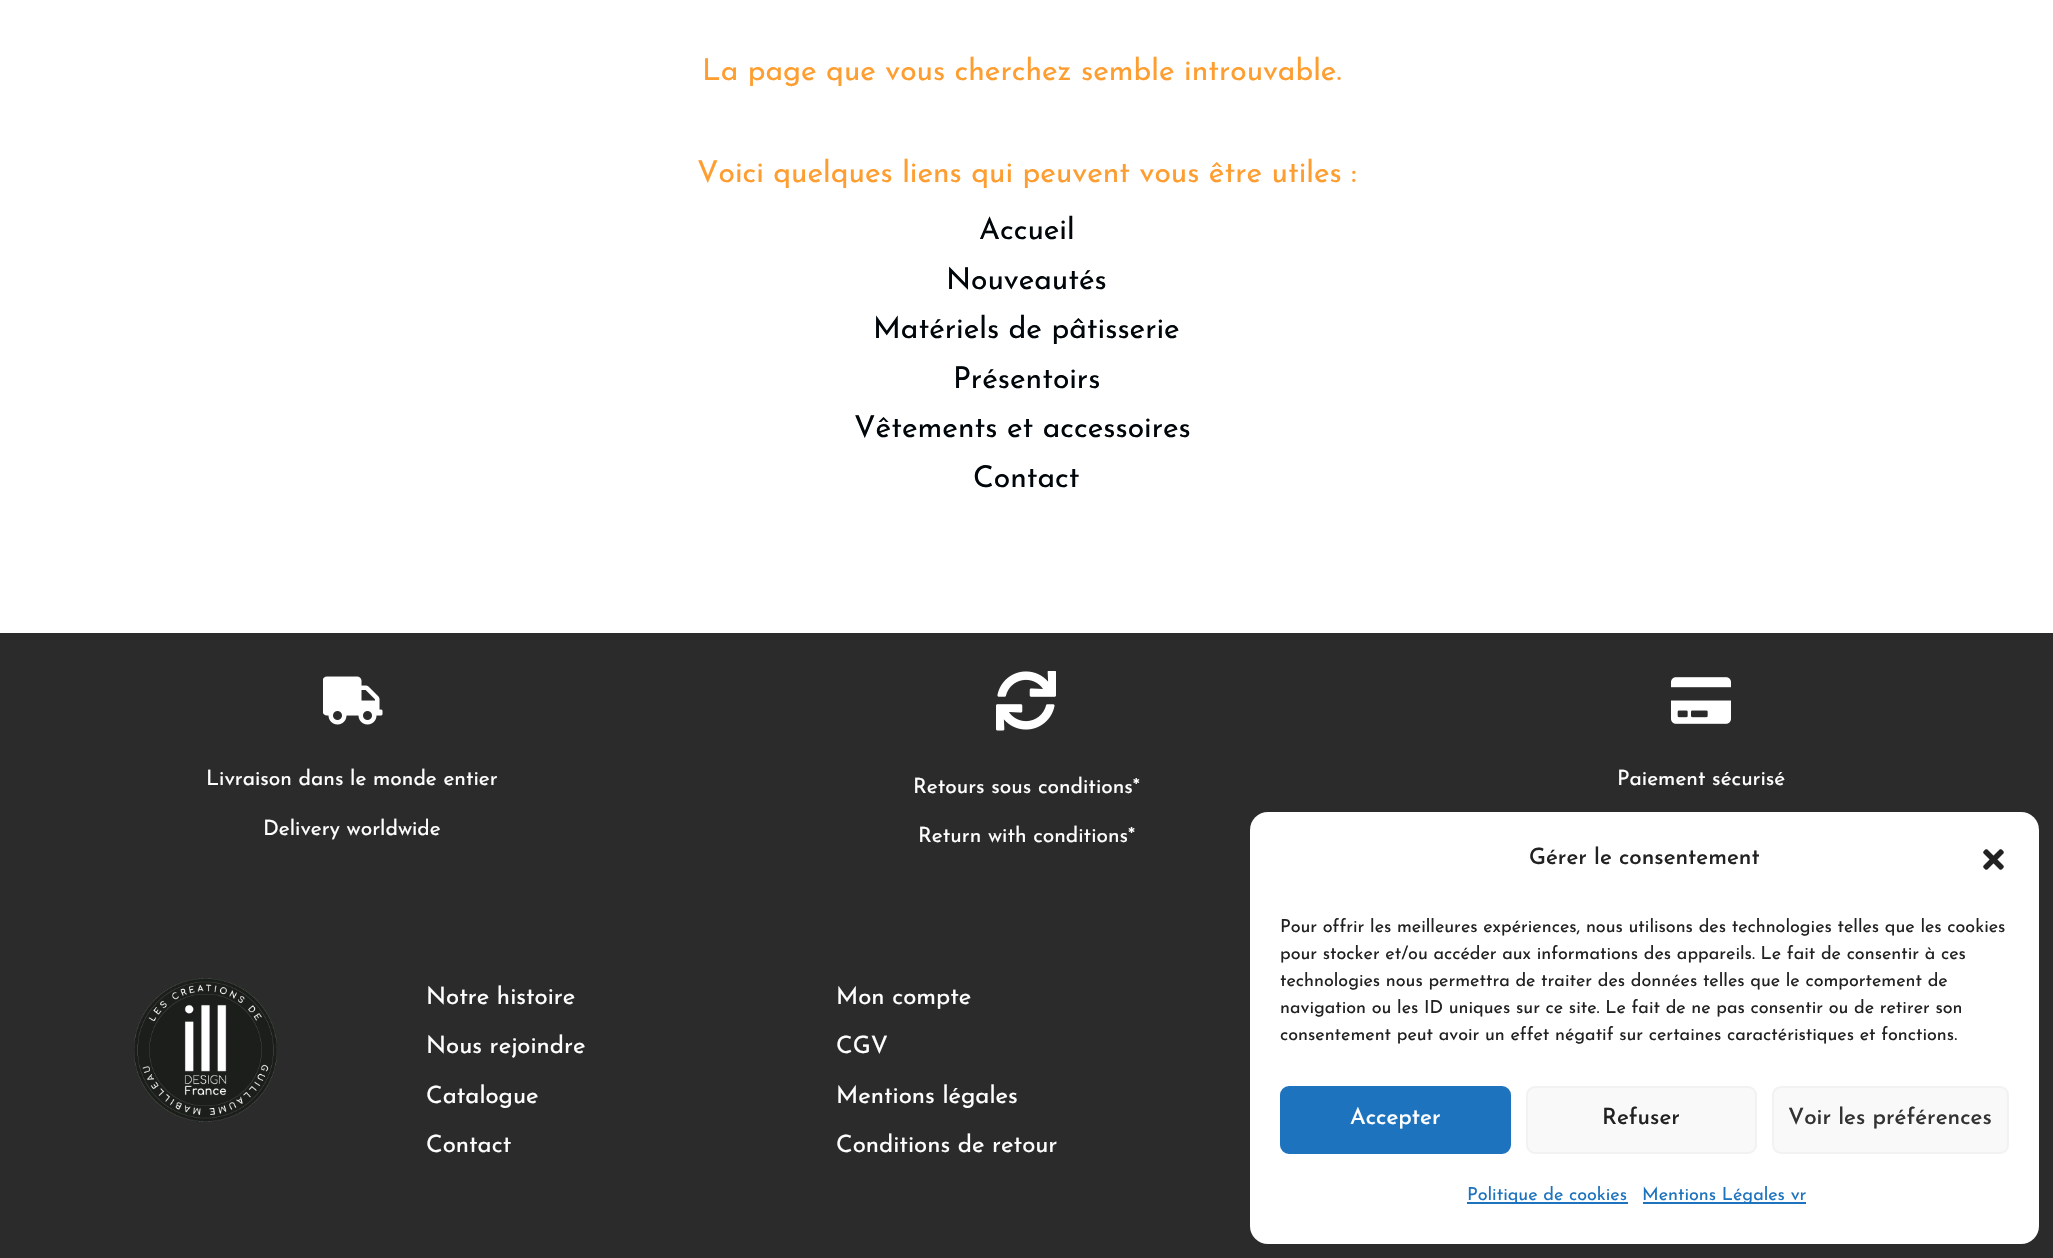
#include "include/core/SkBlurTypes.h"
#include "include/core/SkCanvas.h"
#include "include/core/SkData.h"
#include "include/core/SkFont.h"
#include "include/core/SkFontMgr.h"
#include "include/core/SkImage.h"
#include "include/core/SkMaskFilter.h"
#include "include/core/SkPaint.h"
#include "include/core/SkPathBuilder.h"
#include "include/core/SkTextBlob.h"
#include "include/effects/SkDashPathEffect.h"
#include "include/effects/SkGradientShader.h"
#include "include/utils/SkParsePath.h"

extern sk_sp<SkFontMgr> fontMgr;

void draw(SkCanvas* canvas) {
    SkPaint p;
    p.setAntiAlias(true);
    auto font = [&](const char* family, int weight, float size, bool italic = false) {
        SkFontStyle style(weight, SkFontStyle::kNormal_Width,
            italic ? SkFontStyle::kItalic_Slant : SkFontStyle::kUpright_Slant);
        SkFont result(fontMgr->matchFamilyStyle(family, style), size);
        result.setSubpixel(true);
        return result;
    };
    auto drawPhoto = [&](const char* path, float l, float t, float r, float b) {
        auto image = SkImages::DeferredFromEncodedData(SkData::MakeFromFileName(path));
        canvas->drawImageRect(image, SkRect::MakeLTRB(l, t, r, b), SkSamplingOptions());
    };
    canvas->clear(0xFFFFFFFF);
    auto font1 = font("Josefin Sans", 400, 30);
    p.setColor(0xFFFE9E31);
    canvas->drawString("La page que vous cherchez semble introuvable.", 702, 80, font1, p);
    canvas->drawString("Voici quelques liens qui peuvent vous être utiles :", 697, 182, font1, p);
    p.setColor(0xFF00060A);
    {
        const struct { const char* s; float x, y; } items[] = {
            {"Accueil", 979, 239},
            {"Nouveautés", 946, 289},
            {"Matériels de pâtisserie", 873, 338},
            {"Présentoirs", 953, 388},
            {"Vêtements et accessoires", 854, 437},
            {"Contact", 973, 487},
        };
        for (auto [s, x, y] : items) {
            canvas->drawString(s, x, y, font1, p);
        }
    }
    p.setColor(0xFF2B2B2B);
    canvas->drawRect(SkRect::MakeLTRB(0, 633, 2053, 1258), p);
    drawPhoto("media/1.png", 323, 676, 383, 725);
    auto font2 = font("Josefin Sans", 400, 21);
    p.setColor(0xFFFFFFFF);
    canvas->drawString("Livraison dans le monde entier", 206, 785, font2, p);
    canvas->drawString("Delivery worldwide", 263, 835, font2, p);
    drawPhoto("media/2.png", 996, 671, 1056, 731);
    canvas->drawString("Retours sous conditions*", 913, 793, font2, p);
    canvas->drawString("Return with conditions*", 918, 842, font2, p);
    drawPhoto("media/3.png", 1671, 677, 1731, 724);
    canvas->drawString("Paiement sécurisé", 1617, 785, font2, p);
    drawPhoto("media/4.png", 134, 978, 277, 1122);
    auto font3 = font("Josefin Sans", 400, 24);
    {
        const struct { const char* s; float x, y; } items[] = {
            {"Notre histoire", 426, 1004},
            {"Nous rejoindre", 426, 1053},
            {"Catalogue", 426, 1103},
            {"Contact", 426, 1152},
            {"Mon compte", 836, 1004},
            {"CGV", 836, 1053},
            {"Mentions légales", 836, 1103},
            {"Conditions de retour", 836, 1152},
        };
        for (auto [s, x, y] : items) {
            canvas->drawString(s, x, y, font3, p);
        }
    }
    canvas->drawRoundRect(SkRect::MakeLTRB(1250, 812, 2039, 1244), 18, 18, p);
    auto font4 = font("Josefin Sans", 500, 22.5f);
    p.setColor(0xFF222222);
    canvas->drawString("Gérer le consentement", 1529, 864, font4, p);
    drawPhoto("media/5.png", 1983, 849, 2004, 870);
    auto font5 = font("Josefin Sans", 400, 18);
    {
        const struct { const char* s; float x, y; } items[] = {
            {"Pour offrir les meilleures expériences, nous utilisons des technologies telles que les cookies", 1280, 932},
            {"pour stocker et/ou accéder aux informations des appareils. Le fait de consentir à ces", 1280, 959},
            {"technologies nous permettra de traiter des données telles que le comportement de", 1280, 986},
            {"navigation ou les ID uniques sur ce site. Le fait de ne pas consentir ou de retirer son", 1280, 1013},
            {"consentement peut avoir un effet négatif sur certaines caractéristiques et fonctions.", 1280, 1040},
        };
        for (auto [s, x, y] : items) {
            canvas->drawString(s, x, y, font5, p);
        }
    }
    p.setColor(0xFF1E73BE);
    canvas->drawRoundRect(SkRect::MakeLTRB(1281, 1087, 1510, 1153), 8, 8, p);
    p.setStyle(SkPaint::kStroke_Style);
    p.setStrokeWidth(2);
    canvas->drawRoundRect(SkRect::MakeLTRB(1281, 1087, 1510, 1153), 8, 8, p);
    p.setStyle(SkPaint::kFill_Style);
    p.setColor(0xFFFFFFFF);
    canvas->drawString("Accepter", 1350, 1124, font4, p);
    p.setColor(0xFFF9F9F9);
    canvas->drawRoundRect(SkRect::MakeLTRB(1527, 1087, 1756, 1153), 8, 8, p);
    p.setStyle(SkPaint::kStroke_Style);
    p.setColor(0xFFF2F2F2);
    canvas->drawRoundRect(SkRect::MakeLTRB(1527, 1087, 1756, 1153), 8, 8, p);
    p.setStyle(SkPaint::kFill_Style);
    p.setColor(0xFF222222);
    canvas->drawString("Refuser", 1602, 1124, font4, p);
    p.setColor(0xFFF9F9F9);
    canvas->drawRoundRect(SkRect::MakeLTRB(1773, 1087, 2008, 1153), 8, 8, p);
    p.setStyle(SkPaint::kStroke_Style);
    p.setColor(0xFFF2F2F2);
    canvas->drawRoundRect(SkRect::MakeLTRB(1773, 1087, 2008, 1153), 8, 8, p);
    p.setStyle(SkPaint::kFill_Style);
    p.setColor(0xFF333333);
    canvas->drawString("Voir les préférences", 1788, 1124, font4, p);
    p.setColor(0xFF1E73BE);
    canvas->drawRect(SkRect::MakeLTRB(1467, 1202, 1628, 1204), p);
    canvas->drawString("Politique de cookies", 1467, 1200, font5, p);
    canvas->drawRect(SkRect::MakeLTRB(1643, 1202, 1806, 1204), p);
    canvas->drawString("Mentions Légales vr", 1642, 1200, font5, p);
}
